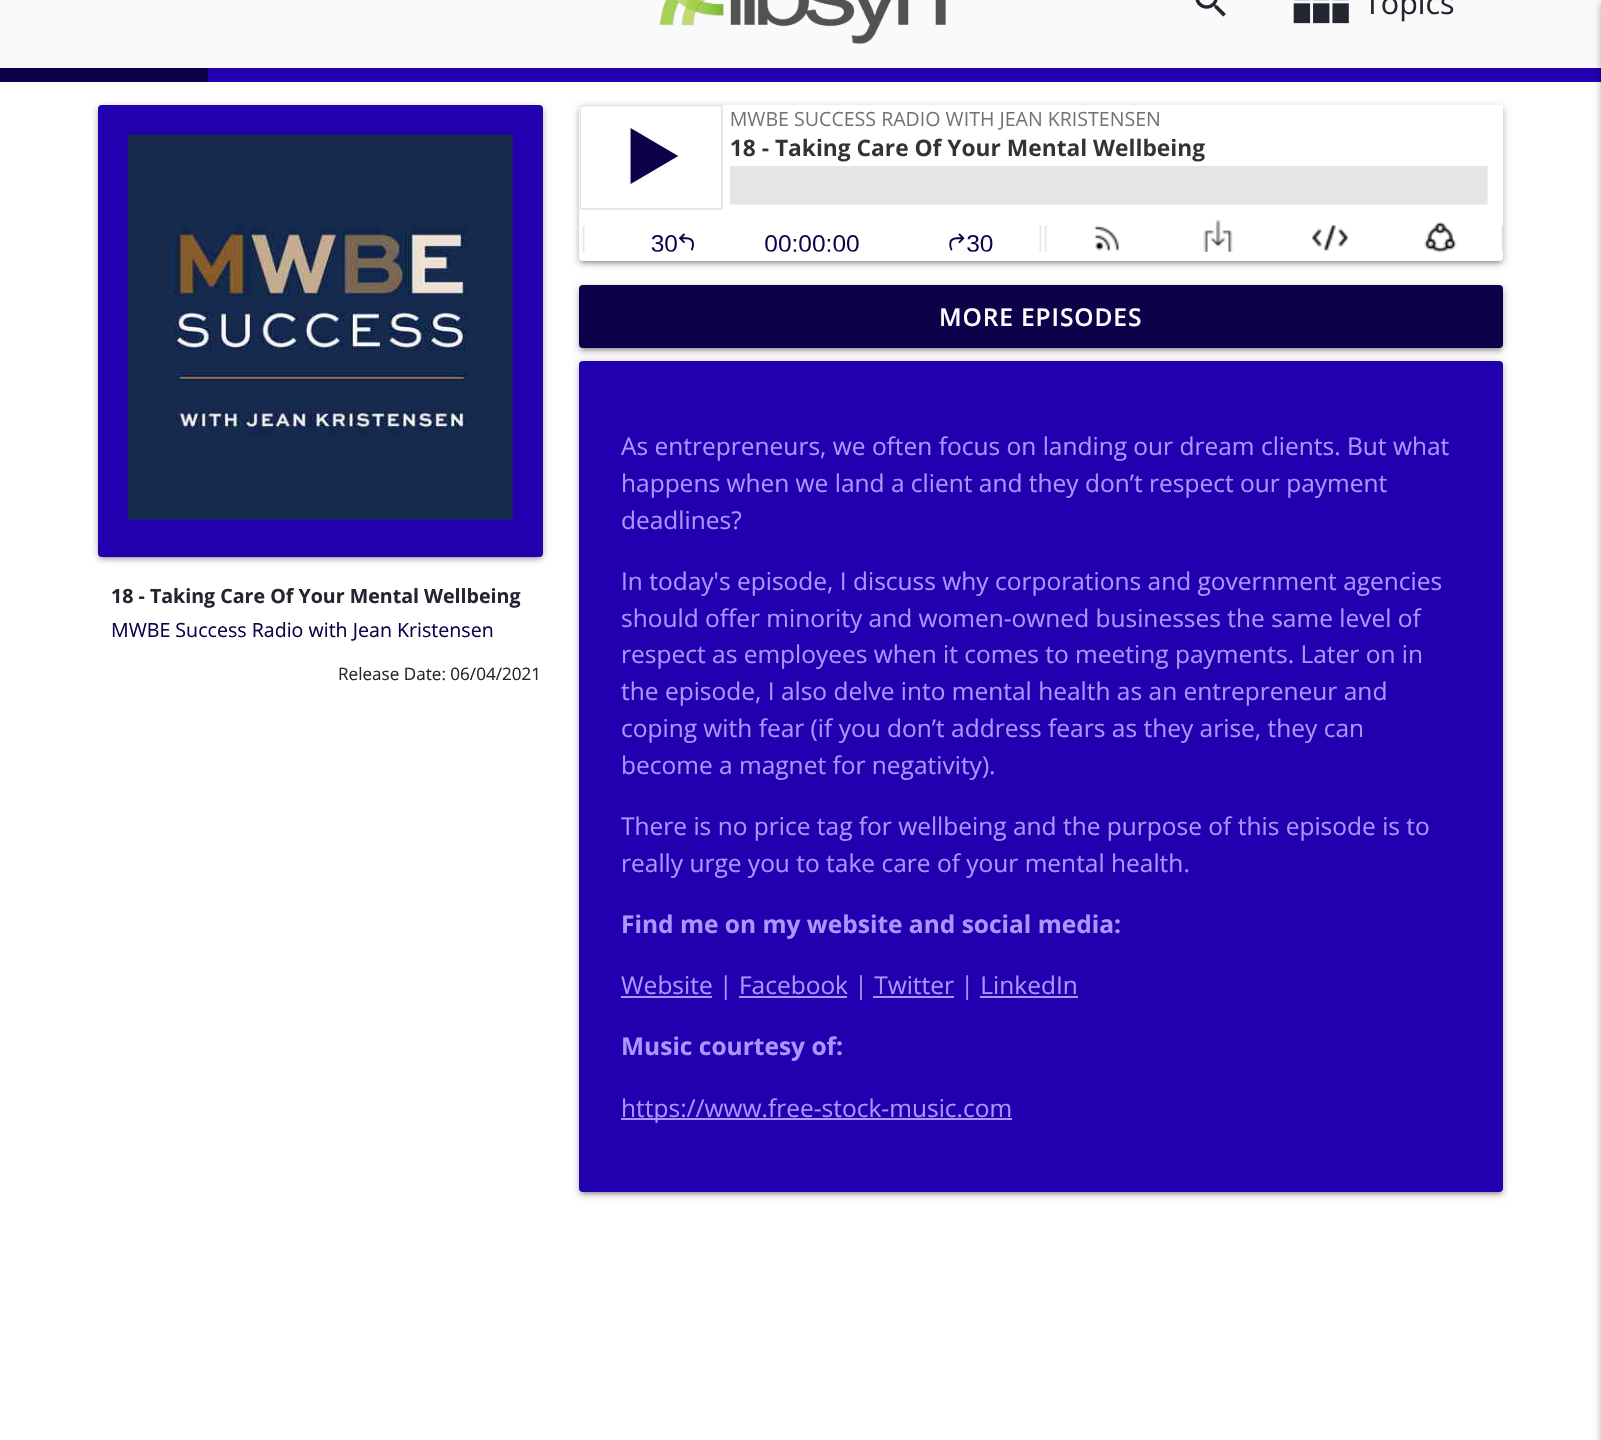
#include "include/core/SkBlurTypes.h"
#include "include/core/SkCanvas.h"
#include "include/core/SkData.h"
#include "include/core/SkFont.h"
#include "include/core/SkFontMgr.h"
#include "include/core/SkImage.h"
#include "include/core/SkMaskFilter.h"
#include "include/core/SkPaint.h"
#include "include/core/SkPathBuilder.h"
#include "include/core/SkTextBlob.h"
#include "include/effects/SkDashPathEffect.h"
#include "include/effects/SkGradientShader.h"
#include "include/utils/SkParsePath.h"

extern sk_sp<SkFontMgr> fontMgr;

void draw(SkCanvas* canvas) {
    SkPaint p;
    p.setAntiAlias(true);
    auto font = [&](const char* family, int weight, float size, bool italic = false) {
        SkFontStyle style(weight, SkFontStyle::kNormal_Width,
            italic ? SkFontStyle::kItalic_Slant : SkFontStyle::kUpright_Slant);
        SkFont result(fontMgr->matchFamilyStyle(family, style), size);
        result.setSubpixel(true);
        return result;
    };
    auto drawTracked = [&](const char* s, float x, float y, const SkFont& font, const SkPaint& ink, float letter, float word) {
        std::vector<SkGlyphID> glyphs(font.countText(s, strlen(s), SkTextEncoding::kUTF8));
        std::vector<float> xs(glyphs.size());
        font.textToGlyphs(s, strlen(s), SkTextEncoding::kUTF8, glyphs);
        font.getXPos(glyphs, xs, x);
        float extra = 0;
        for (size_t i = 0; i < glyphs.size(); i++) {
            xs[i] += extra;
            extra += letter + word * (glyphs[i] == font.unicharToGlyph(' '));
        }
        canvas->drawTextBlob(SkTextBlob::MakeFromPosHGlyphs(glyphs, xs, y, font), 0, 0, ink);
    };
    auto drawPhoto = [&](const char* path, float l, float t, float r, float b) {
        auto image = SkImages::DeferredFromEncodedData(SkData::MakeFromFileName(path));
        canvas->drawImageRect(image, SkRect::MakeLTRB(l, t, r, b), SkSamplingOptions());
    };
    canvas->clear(0xFFFFFFFF);
    p.setColor(0xFFFAFAFA);
    canvas->drawRect(SkRect::MakeLTRB(0, 0, 1601, 68), p);
    drawPhoto("media/1.png", 660, 0, 946, 44);
    drawPhoto("media/2.png", 1195, 0, 1226, 17);
    drawPhoto("media/3.png", 1293, 0, 1349, 24);
    auto font1 = font("Open Sans", 400, 30.5f);
    p.setColor(0xFF232530);
    canvas->drawString("Topics", 1364, 14, font1, p);
    p.setColor(0xFF2200AF);
    canvas->drawRect(SkRect::MakeLTRB(208, 68, 1601, 82), p);
    p.setColor(0xFF0E0049);
    canvas->drawRect(SkRect::MakeLTRB(0, 68, 208, 82), p);
    p.setColor(0x33000000);
    p.setMaskFilter(SkMaskFilter::MakeBlur(kNormal_SkBlurStyle, 4.5f));
    canvas->drawRect(SkRect::MakeLTRB(1601, 2, 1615, 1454), p);
    p.setMaskFilter(nullptr);
    p.setColor(0x24000000);
    p.setMaskFilter(SkMaskFilter::MakeBlur(kNormal_SkBlurStyle, 2));
    canvas->drawRect(SkRect::MakeLTRB(1601, 4, 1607, 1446), p);
    p.setMaskFilter(nullptr);
    p.setColor(0x33000000);
    p.setMaskFilter(SkMaskFilter::MakeBlur(kNormal_SkBlurStyle, 4.5f));
    canvas->drawRoundRect(SkRect::MakeLTRB(579, 107, 1503, 263), 4, 4, p);
    p.setMaskFilter(nullptr);
    p.setColor(0x1F000000);
    p.setMaskFilter(SkMaskFilter::MakeBlur(kNormal_SkBlurStyle, 1));
    canvas->drawRect(SkRect::MakeLTRB(583, 114, 1500, 263), p);
    p.setMaskFilter(nullptr);
    p.setColor(0x24000000);
    p.setMaskFilter(SkMaskFilter::MakeBlur(kNormal_SkBlurStyle, 2));
    canvas->drawRoundRect(SkRect::MakeLTRB(579, 109, 1503, 264), 4, 4, p);
    p.setMaskFilter(nullptr);
    p.setColor(0xFFFFFFFF);
    canvas->drawRoundRect(SkRect::MakeLTRB(579, 105, 1503, 261), 4, 4, p);
    drawPhoto("media/4.png", 579, 105, 1503, 252);
    p.setColor(0x33000000);
    p.setMaskFilter(SkMaskFilter::MakeBlur(kNormal_SkBlurStyle, 4.5f));
    canvas->drawRoundRect(SkRect::MakeLTRB(579, 287, 1503, 350), 4, 4, p);
    p.setMaskFilter(nullptr);
    p.setColor(0x1F000000);
    p.setMaskFilter(SkMaskFilter::MakeBlur(kNormal_SkBlurStyle, 1));
    canvas->drawRect(SkRect::MakeLTRB(583, 294, 1500, 350), p);
    p.setMaskFilter(nullptr);
    p.setColor(0x24000000);
    p.setMaskFilter(SkMaskFilter::MakeBlur(kNormal_SkBlurStyle, 2));
    canvas->drawRoundRect(SkRect::MakeLTRB(579, 289, 1503, 352), 4, 4, p);
    p.setMaskFilter(nullptr);
    p.setColor(0xFF0E0049);
    canvas->drawRoundRect(SkRect::MakeLTRB(579, 285, 1503, 348), 4, 4, p);
    auto font2 = font("Open Sans", 600, 24.5f);
    p.setColor(0xFFFFFFFF);
    drawTracked("MORE EPISODES", 939, 326, font2, p, 0.9f, 0);
    p.setColor(0x33000000);
    p.setMaskFilter(SkMaskFilter::MakeBlur(kNormal_SkBlurStyle, 4.5f));
    canvas->drawRoundRect(SkRect::MakeLTRB(98, 107, 543, 558), 4, 4, p);
    p.setMaskFilter(nullptr);
    p.setColor(0x1F000000);
    p.setMaskFilter(SkMaskFilter::MakeBlur(kNormal_SkBlurStyle, 1));
    canvas->drawRect(SkRect::MakeLTRB(102, 114, 539, 558), p);
    p.setMaskFilter(nullptr);
    p.setColor(0x24000000);
    p.setMaskFilter(SkMaskFilter::MakeBlur(kNormal_SkBlurStyle, 2));
    canvas->drawRoundRect(SkRect::MakeLTRB(98, 109, 543, 560), 4, 4, p);
    p.setMaskFilter(nullptr);
    p.setColor(0xFF2200AF);
    canvas->drawRoundRect(SkRect::MakeLTRB(98, 105, 543, 557), 4, 4, p);
    drawPhoto("media/5.png", 127, 134, 513, 520);
    auto font3 = font("Open Sans", 700, 19.6f);
    p.setColor(0xFF232530);
    canvas->drawString("18 - Taking Care Of Your Mental Wellbeing", 111, 603, font3, p);
    auto font4 = font("Open Sans", 400, 19.6f);
    p.setColor(0xFF0E0049);
    canvas->drawString("MWBE Success Radio with Jean Kristensen", 111, 637, font4, p);
    auto font5 = font("Open Sans", 400, 17.1f);
    p.setColor(0xFF232530);
    canvas->drawString("Release Date: 06/04/2021", 338, 680, font5, p);
    p.setColor(0x33000000);
    p.setMaskFilter(SkMaskFilter::MakeBlur(kNormal_SkBlurStyle, 4.5f));
    canvas->drawRoundRect(SkRect::MakeLTRB(579, 362, 1503, 1194), 4, 4, p);
    p.setMaskFilter(nullptr);
    p.setColor(0x1F000000);
    p.setMaskFilter(SkMaskFilter::MakeBlur(kNormal_SkBlurStyle, 1));
    canvas->drawRect(SkRect::MakeLTRB(583, 369, 1500, 1194), p);
    p.setMaskFilter(nullptr);
    p.setColor(0x24000000);
    p.setMaskFilter(SkMaskFilter::MakeBlur(kNormal_SkBlurStyle, 2));
    canvas->drawRoundRect(SkRect::MakeLTRB(579, 364, 1503, 1195), 4, 4, p);
    p.setMaskFilter(nullptr);
    p.setColor(0xFF2200AF);
    canvas->drawRoundRect(SkRect::MakeLTRB(579, 361, 1503, 1192), 4, 4, p);
    auto font6 = font("Open Sans", 400, 24.5f);
    p.setColor(0xFFAA96FF);
    {
        const struct { const char* s; float x, y; } items[] = {
            {"As entrepreneurs, we often focus on landing our dream clients. But what", 621, 455},
            {"happens when we land a client and they don’t respect our payment", 621, 492},
            {"deadlines?", 621, 529},
            {"In today's episode, I discuss why corporations and government agencies", 621, 590},
            {"should offer minority and women-owned businesses the same level of", 621, 627},
            {"respect as employees when it comes to meeting payments. Later on in", 621, 663},
            {"the episode, I also delve into mental health as an entrepreneur and", 621, 700},
            {"coping with fear (if you don’t address fears as they arise, they can", 621, 737},
            {"become a magnet for negativity).", 621, 774},
            {"There is no price tag for wellbeing and the purpose of this episode is to", 621, 835},
            {"really urge you to take care of your mental health.", 621, 872},
        };
        for (auto [s, x, y] : items) {
            canvas->drawString(s, x, y, font6, p);
        }
    }
    auto font7 = font("Open Sans", 700, 24.5f);
    canvas->drawString("Find me on my website and social media:", 621, 933, font7, p);
    canvas->drawRect(SkRect::MakeLTRB(621, 996, 712, 998), p);
    canvas->drawString("Website | Facebook | Twitter | LinkedIn", 621, 994, font6, p);
    {
        const struct { float l, t, r, b; SkColor color; } items[] = {
            {739, 996, 847, 998, 0xFFAA96FF},
            {873, 996, 954, 998, 0xFFAA96FF},
            {980, 996, 1078, 998, 0xFFAA96FF},
        };
        for (auto [l, t, r, b, color] : items) {
            p.setColor(color);
            canvas->drawRect(SkRect::MakeLTRB(l, t, r, b), p);
        }
    }
    canvas->drawString("Music courtesy of:", 621, 1055, font7, p);
    canvas->drawRect(SkRect::MakeLTRB(621, 1118, 1012, 1120), p);
    canvas->drawString("https://www.free-stock-music.com", 621, 1117, font6, p);
}
